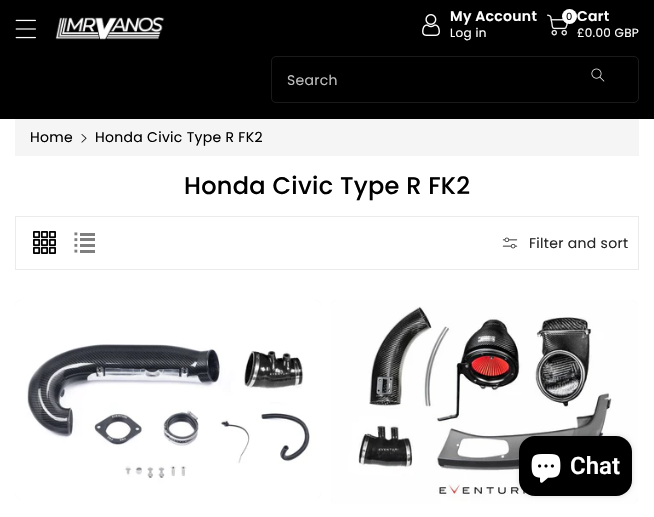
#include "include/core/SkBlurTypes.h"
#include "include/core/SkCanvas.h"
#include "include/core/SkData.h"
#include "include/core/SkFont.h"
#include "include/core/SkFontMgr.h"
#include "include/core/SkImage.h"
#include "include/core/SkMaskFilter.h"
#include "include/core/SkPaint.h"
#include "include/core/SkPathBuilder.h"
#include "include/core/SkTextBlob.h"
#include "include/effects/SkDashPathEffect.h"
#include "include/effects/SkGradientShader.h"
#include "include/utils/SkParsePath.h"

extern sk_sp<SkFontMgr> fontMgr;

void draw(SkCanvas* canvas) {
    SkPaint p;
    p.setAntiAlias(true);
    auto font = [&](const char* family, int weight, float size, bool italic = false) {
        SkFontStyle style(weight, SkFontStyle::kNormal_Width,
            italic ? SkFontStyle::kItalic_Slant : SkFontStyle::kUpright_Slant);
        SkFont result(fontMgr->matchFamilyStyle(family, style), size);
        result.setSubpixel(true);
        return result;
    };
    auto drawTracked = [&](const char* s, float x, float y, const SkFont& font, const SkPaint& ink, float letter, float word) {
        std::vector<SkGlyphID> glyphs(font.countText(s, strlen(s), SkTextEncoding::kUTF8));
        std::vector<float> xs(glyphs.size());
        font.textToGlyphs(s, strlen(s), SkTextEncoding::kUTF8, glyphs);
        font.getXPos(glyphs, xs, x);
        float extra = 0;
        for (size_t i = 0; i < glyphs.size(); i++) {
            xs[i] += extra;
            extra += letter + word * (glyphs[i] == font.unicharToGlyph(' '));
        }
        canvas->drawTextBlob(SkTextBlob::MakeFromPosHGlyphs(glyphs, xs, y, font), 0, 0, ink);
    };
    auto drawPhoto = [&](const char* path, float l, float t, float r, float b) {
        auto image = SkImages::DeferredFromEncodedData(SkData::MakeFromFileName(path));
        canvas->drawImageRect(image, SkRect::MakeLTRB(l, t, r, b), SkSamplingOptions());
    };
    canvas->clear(0xFFFFFFFF);
    p.setColor(0xFF000000);
    canvas->drawRect(SkRect::MakeLTRB(0, 0, 654, 119), p);
    drawPhoto("media/1.png", 15, 19, 36, 39);
    drawPhoto("media/2.png", 55, 17, 165, 40);
    drawPhoto("media/3.png", 422, 14, 440, 36);
    auto font1 = font("Poppins", 600, 14);
    p.setColor(0xFFFFFFFF);
    drawTracked("My Account", 450, 21, font1, p, 0.3f, 0);
    auto font2 = font("Poppins", 400, 12);
    drawTracked("Log in", 450, 37, font2, p, 0.3f, 0);
    drawPhoto("media/4.png", 547, 14, 568, 36);
    canvas->drawCircle(569.5f, 16.5f, 7.5f, p);
    auto font3 = font("Poppins", 400, 10);
    p.setColor(0xFF000000);
    drawTracked("0", 566, 20, font3, p, 0.3f, 0);
    p.setColor(0xFFFFFFFF);
    drawTracked("Cart", 577, 21, font1, p, 0.3f, 0);
    drawTracked("£0.00 GBP", 577, 37, font2, p, 0.3f, 0);
    drawPhoto("media/5.png", 591, 68, 605, 82);
    p.setStyle(SkPaint::kStroke_Style);
    p.setStrokeWidth(1);
    p.setColor(0xFF1A1A1A);
    canvas->drawRoundRect(SkRect::MakeLTRB(271.5f, 56.5f, 638.5f, 102.5f), 4.5f, 4.5f, p);
    auto font4 = font("Poppins", 400, 14);
    p.setStyle(SkPaint::kFill_Style);
    p.setColor(0xFFBFBFBF);
    drawTracked("Search", 287, 85, font4, p, 0.3f, 0);
    p.setColor(0xFFF5F5F5);
    canvas->drawRect(SkRect::MakeLTRB(15, 119, 639, 156), p);
    p.setColor(0xFF000000);
    drawTracked("Home", 30, 142, font4, p, 0.3f, 0);
    drawPhoto("media/6.png", 81, 134, 87, 143);
    drawTracked("Honda Civic Type R FK2", 95, 142, font4, p, 0.3f, 0);
    auto font5 = font("Poppins", 500, 24);
    drawTracked("Honda Civic Type R FK2", 184, 194, font5, p, 0.3f, 0);
    p.setStyle(SkPaint::kStroke_Style);
    p.setColor(0xFFEBEBEB);
    canvas->drawRect(SkRect::MakeLTRB(15.5f, 216.5f, 638.5f, 269.5f), p);
    drawPhoto("media/7.png", 33, 231, 56, 254);
    drawPhoto("media/8.png", 74, 232, 95, 253);
    drawPhoto("media/9.png", 502, 237, 518, 249);
    p.setStyle(SkPaint::kFill_Style);
    p.setColor(0xFF262626);
    drawTracked("Filter and sort", 529, 248, font4, p, 0.3f, 0);
    p.setColor(0xFFF3F3F3);
    canvas->drawRoundRect(SkRect::MakeLTRB(15, 300, 321, 499), 6, 6, p);
    drawPhoto("media/10.png", 15, 300, 321, 499);
    canvas->drawRoundRect(SkRect::MakeLTRB(331, 300, 638, 504), 6, 6, p);
    drawPhoto("media/11.png", 331, 300, 638, 504);
    p.setColor(0x26000000);
    p.setMaskFilter(SkMaskFilter::MakeBlur(kNormal_SkBlurStyle, 2.5f));
    canvas->drawRoundRect(SkRect::MakeLTRB(519, 436, 632, 496), 16, 16, p);
    p.setMaskFilter(nullptr);
    p.setColor(0xFF000000);
    canvas->drawRoundRect(SkRect::MakeLTRB(519, 436, 632, 496), 16, 16, p);
    drawPhoto("media/12.png", 531, 454, 561, 483);
    auto font6 = font("Roboto", 600, 24);
    p.setColor(0xFFFFFFFF);
    canvas->drawString("Chat", 570, 474, font6, p);
}
